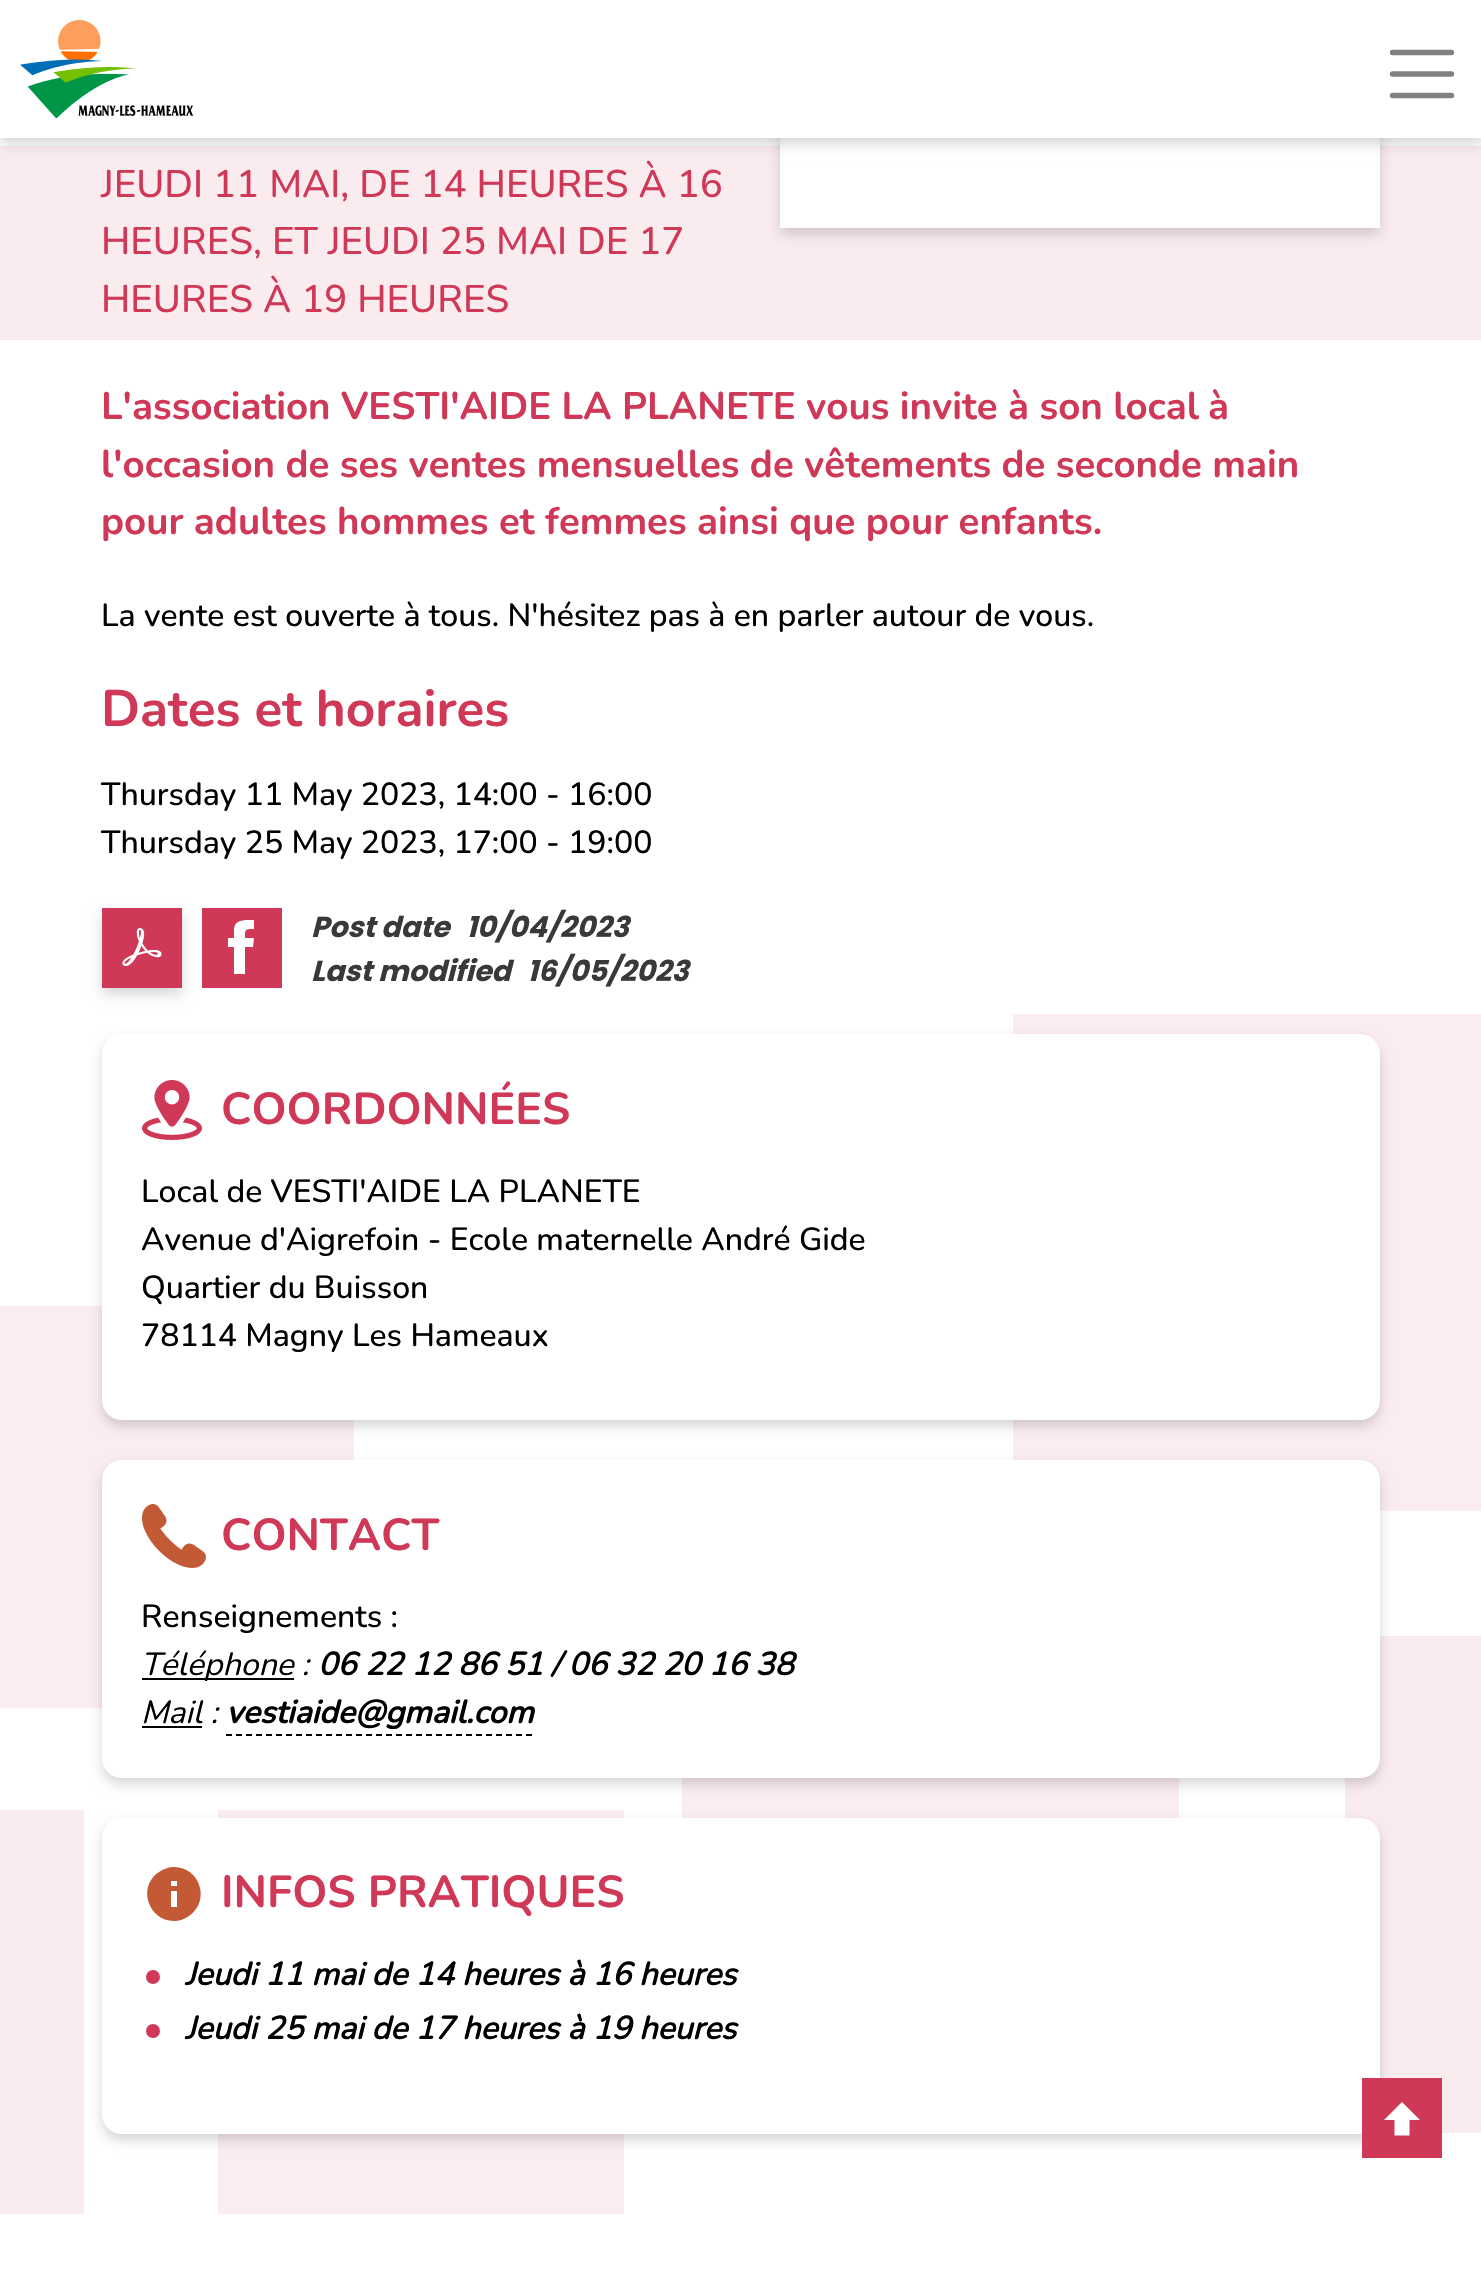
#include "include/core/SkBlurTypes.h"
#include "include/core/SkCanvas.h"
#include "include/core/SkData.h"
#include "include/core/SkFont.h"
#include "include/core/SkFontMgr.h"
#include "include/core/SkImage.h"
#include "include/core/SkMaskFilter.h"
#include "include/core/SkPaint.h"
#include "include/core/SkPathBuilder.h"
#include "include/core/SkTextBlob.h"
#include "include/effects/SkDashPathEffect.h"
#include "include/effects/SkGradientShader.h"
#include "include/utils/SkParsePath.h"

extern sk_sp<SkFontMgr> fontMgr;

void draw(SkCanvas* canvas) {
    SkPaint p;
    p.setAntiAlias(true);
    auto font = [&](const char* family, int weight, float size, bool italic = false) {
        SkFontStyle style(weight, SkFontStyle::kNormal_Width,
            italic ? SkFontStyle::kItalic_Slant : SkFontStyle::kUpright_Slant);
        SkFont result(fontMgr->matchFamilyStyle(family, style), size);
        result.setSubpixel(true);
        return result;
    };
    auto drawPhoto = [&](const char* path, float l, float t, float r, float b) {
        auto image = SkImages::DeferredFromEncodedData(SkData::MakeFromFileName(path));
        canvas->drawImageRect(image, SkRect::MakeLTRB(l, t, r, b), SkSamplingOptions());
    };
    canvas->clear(0xFFFFFFFF);
    p.setColor(0xFFFAEBEE);
    canvas->drawRect(SkRect::MakeLTRB(0, 146, 1481, 340), p);
    p.setColor(0x29000000);
    p.setMaskFilter(SkMaskFilter::MakeBlur(kNormal_SkBlurStyle, 6));
    canvas->drawRect(SkRect::MakeLTRB(780, -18, 1380, 234), p);
    p.setMaskFilter(nullptr);
    drawPhoto("media/2.png", 780, 138, 1380, 228);
    p.setMaskFilter(SkMaskFilter::MakeBlur(kNormal_SkBlurStyle, 6));
    canvas->drawRect(SkRect::MakeLTRB(0, 6, 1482, 144), p);
    p.setMaskFilter(nullptr);
    p.setColor(0xFFFFFFFF);
    canvas->drawRect(SkRect::MakeLTRB(0, 0, 1481, 138), p);
    drawPhoto("media/1.png", 20, 20, 194, 118);
    p.setStyle(SkPaint::kStroke_Style);
    p.setStrokeWidth(5.3f);
    p.setStrokeCap(SkPaint::kRound_Cap);
    p.setColor(0xFF808080);
    canvas->drawPath(SkPathBuilder().moveTo(1392.5f, 52.5f).lineTo(1451.5f, 52.5f).moveTo(1392.5f, 74).lineTo(1451.5f, 74).moveTo(1392.5f, 95.5f).lineTo(1451.5f, 95.5f).detach(), p);
    p.setStyle(SkPaint::kFill_Style);
    {
        const struct { float l, t, r, b; SkColor color; } items[] = {
            {0, 1810, 84, 2214, 0xFFFAEBEE},
            {218, 1810, 624, 2214, 0xFFFBECEF},
            {0, 1306, 354, 1708, 0xFFFBECEF},
            {682, 1778, 1179, 1818, 0xFFFBECEF},
            {1345, 1636, 1481, 2133, 0xFFFAEBEE},
            {1013, 1014, 1481, 1511, 0xFFFBECEF},
        };
        for (auto [l, t, r, b, color] : items) {
            p.setColor(color);
            canvas->drawRect(SkRect::MakeLTRB(l, t, r, b), p);
        }
    }
    auto font1 = font("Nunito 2", 200, 38.4f);
    p.setColor(0xFFD03857);
    {
        const struct { const char* s; float x, y; } items[] = {
            {"JEUDI 11 MAI, DE 14 HEURES À 16", 101, 197},
            {"HEURES, ET JEUDI 25 MAI DE 17", 101, 254},
            {"HEURES À 19 HEURES", 101, 312},
        };
        for (auto [s, x, y] : items) {
            canvas->drawString(s, x, y, font1, p);
        }
    }
    auto font2 = font("Nunito", 200, 38.4f);
    {
        const struct { const char* s; float x, y; } items[] = {
            {"L'association VESTI'AIDE LA PLANETE vous invite à son local", 101, 419},
            {"à", 1208, 419},
            {"l'occasion de ses ventes mensuelles de vêtements de seconde main", 101, 477},
            {"pour adultes hommes et femmes ainsi que pour enfants.", 101, 534},
        };
        for (auto [s, x, y] : items) {
            canvas->drawString(s, x, y, font2, p);
        }
    }
    auto font3 = font("Nunito 2", 200, 32);
    p.setColor(0xFF000000);
    canvas->drawString("La vente est ouverte à tous. N'hésitez pas à en parler autour de vous.", 101, 626, font3, p);
    auto font4 = font("Nunito", 200, 51.25f);
    p.setColor(0xFFD03857);
    canvas->drawString("Dates et horaires", 101, 726, font4, p);
    p.setColor(0xFF000000);
    canvas->drawString("Thursday 11 May 2023, 14:00 - 16:00", 101, 805, font3, p);
    canvas->drawString("Thursday 25 May 2023, 17:00 - 19:00", 101, 853, font3, p);
    p.setColor(0x29000000);
    p.setMaskFilter(SkMaskFilter::MakeBlur(kNormal_SkBlurStyle, 6));
    canvas->drawRect(SkRect::MakeLTRB(102, 914, 182, 994), p);
    p.setMaskFilter(nullptr);
    p.setColor(0xFFD03857);
    canvas->drawRect(SkRect::MakeLTRB(102, 908, 182, 988), p);
    drawPhoto("media/3.png", 122, 928, 162, 966);
    canvas->drawRect(SkRect::MakeLTRB(202, 908, 282, 988), p);
    p.setColor(0xFFFFFFFF);
    canvas->drawPath(SkPathBuilder().moveTo(234, 930).lineTo(234, 938).lineTo(228, 938).lineTo(228, 947).lineTo(234, 947).lineTo(234, 974).lineTo(245, 974).lineTo(245, 947).lineTo(253, 947).lineTo(254, 938).lineTo(245, 938).cubicTo(245, 929, 245, 929, 254, 929).lineTo(254, 920).cubicTo(245, 920, 234, 919, 234, 930).close().detach(), p);
    auto font5 = font("Poppins", 700, 28.75f, true);
    p.setColor(0xFF393939);
    {
        const struct { const char* s; float x, y; } items[] = {
            {"Post date", 311, 937},
            {"10/04/2023", 466, 937},
            {"Last modified", 311, 981},
            {"16/05/2023", 527, 981},
        };
        for (auto [s, x, y] : items) {
            canvas->drawString(s, x, y, font5, p);
        }
    }
    p.setColor(0x29000000);
    p.setMaskFilter(SkMaskFilter::MakeBlur(kNormal_SkBlurStyle, 6));
    canvas->drawRoundRect(SkRect::MakeLTRB(102, 1040, 1380, 1426), 20, 20, p);
    p.setMaskFilter(nullptr);
    p.setColor(0xFFFFFFFF);
    canvas->drawRoundRect(SkRect::MakeLTRB(102, 1034, 1380, 1420), 20, 20, p);
    drawPhoto("media/4.png", 142, 1080, 202, 1140);
    auto font6 = font("Nunito", 200, 44.75f);
    p.setColor(0xFFD03857);
    canvas->drawString("COORDONNÉES", 221, 1124, font6, p);
    p.setColor(0xFF000000);
    {
        const struct { const char* s; float x, y; } items[] = {
            {"Local de VESTI'AIDE LA PLANETE", 141, 1202},
            {"Avenue d'Aigrefoin - Ecole maternelle André Gide", 141, 1250},
            {"Quartier du Buisson", 141, 1298},
            {"78114 Magny Les Hameaux", 141, 1346},
        };
        for (auto [s, x, y] : items) {
            canvas->drawString(s, x, y, font3, p);
        }
    }
    p.setColor(0x29000000);
    p.setMaskFilter(SkMaskFilter::MakeBlur(kNormal_SkBlurStyle, 6));
    canvas->drawRoundRect(SkRect::MakeLTRB(102, 1466, 1380, 1784), 20, 20, p);
    p.setMaskFilter(nullptr);
    p.setColor(0xFFFFFFFF);
    canvas->drawRoundRect(SkRect::MakeLTRB(102, 1460, 1380, 1778), 20, 20, p);
    drawPhoto("media/5.png", 142, 1504, 206, 1568);
    p.setColor(0xFFD03857);
    canvas->drawString("CONTACT", 221, 1550, font6, p);
    p.setColor(0xFF000000);
    canvas->drawString("Renseignements :", 141, 1627, font3, p);
    canvas->drawRect(SkRect::MakeLTRB(142, 1678, 294, 1680), p);
    auto font7 = font("Nunito", 200, 32, true);
    canvas->drawString("Téléphone :", 141, 1675, font7, p);
    auto font8 = font("Nunito", 700, 32, true);
    canvas->drawString("06 22 12 86 51 / 06 32 20 16 38", 318, 1675, font8, p);
    canvas->drawString("Mail :", 141, 1723, font7, p);
    canvas->drawRect(SkRect::MakeLTRB(142, 1726, 202, 1728), p);
    auto font9 = font("Nunito 2", 700, 32, true);
    canvas->drawString("vestiaide@gmail.com", 226, 1723, font9, p);
    p.setStyle(SkPaint::kStroke_Style);
    p.setStrokeWidth(2);
    p.setStrokeCap(SkPaint::kButt_Cap);
    p.setPathEffect(SkDashPathEffect::Make({{6, 4}}, 0));
    canvas->drawPath(SkPathBuilder().moveTo(226, 1735).lineTo(533.5f, 1735).detach(), p);
    p.setPathEffect(nullptr);
    p.setStyle(SkPaint::kFill_Style);
    p.setColor(0x29000000);
    p.setMaskFilter(SkMaskFilter::MakeBlur(kNormal_SkBlurStyle, 6));
    canvas->drawRoundRect(SkRect::MakeLTRB(102, 1824, 1380, 2140), 20, 20, p);
    p.setMaskFilter(nullptr);
    p.setColor(0xFFFFFFFF);
    canvas->drawRoundRect(SkRect::MakeLTRB(102, 1818, 1380, 2134), 20, 20, p);
    p.setColor(0xFFC35A35);
    canvas->drawPath(SkPathBuilder().moveTo(174, 1867).cubicTo(169, 1867, 163, 1869, 159, 1872).cubicTo(137, 1886, 148, 1921, 174, 1921).cubicTo(179, 1921, 185, 1919, 189, 1916).cubicTo(211, 1901, 200, 1867, 174, 1867).close().moveTo(177, 1907).lineTo(171, 1907).lineTo(171, 1891).lineTo(177, 1891).close().moveTo(177, 1886).lineTo(171, 1886).lineTo(171, 1881).lineTo(177, 1881).close().detach(), p);
    p.setColor(0xFFD03857);
    canvas->drawString("INFOS PRATIQUES", 221, 1907, font6, p);
    canvas->drawCircle(153, 1977, 7, p);
    p.setColor(0xFF000000);
    canvas->drawString("Jeudi 11 mai de 14 heures à 16 heures", 185, 1985, font8, p);
    p.setColor(0xFFD03857);
    canvas->drawCircle(153, 2031, 7, p);
    p.setColor(0xFF000000);
    canvas->drawString("Jeudi 25 mai de 17 heures à 19 heures", 185, 2039, font8, p);
    p.setColor(0xFFD03857);
    canvas->drawRect(SkRect::MakeLTRB(1362, 2078, 1442, 2158), p);
    p.setColor(0xFFFFFFFF);
    canvas->drawPath(SkPathBuilder().moveTo(1384, 2120).lineTo(1394.5f, 2120).lineTo(1394.5f, 2135.5f).lineTo(1409.5f, 2135.5f).lineTo(1409.5f, 2120).lineTo(1420, 2120).lineTo(1402, 2102).close().detach(), p);
}
